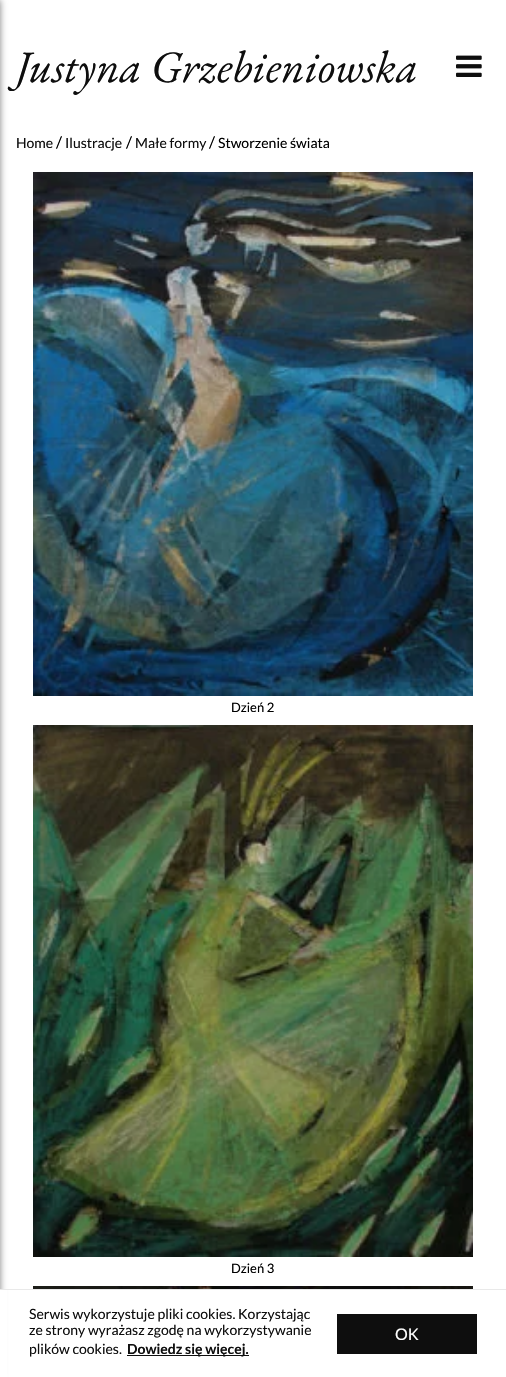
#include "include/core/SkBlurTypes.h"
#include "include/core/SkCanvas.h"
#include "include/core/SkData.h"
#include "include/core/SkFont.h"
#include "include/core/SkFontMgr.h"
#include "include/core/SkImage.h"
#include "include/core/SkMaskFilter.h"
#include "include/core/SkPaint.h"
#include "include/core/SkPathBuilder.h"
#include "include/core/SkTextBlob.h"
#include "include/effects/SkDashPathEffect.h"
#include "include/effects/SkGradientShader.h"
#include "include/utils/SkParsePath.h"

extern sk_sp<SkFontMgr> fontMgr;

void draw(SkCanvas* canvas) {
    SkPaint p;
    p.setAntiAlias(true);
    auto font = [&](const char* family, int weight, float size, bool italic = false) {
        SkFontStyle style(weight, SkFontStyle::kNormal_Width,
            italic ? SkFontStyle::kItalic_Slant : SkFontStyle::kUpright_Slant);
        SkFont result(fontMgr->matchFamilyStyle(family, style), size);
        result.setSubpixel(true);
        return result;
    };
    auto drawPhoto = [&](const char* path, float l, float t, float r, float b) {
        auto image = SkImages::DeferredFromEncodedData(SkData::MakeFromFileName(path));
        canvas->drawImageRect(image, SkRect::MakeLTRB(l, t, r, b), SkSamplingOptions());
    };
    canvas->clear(0xFFFFFFFF);
    p.setColor(0x80000000);
    p.setMaskFilter(SkMaskFilter::MakeBlur(kNormal_SkBlurStyle, 3.5f));
    canvas->drawRect(SkRect::MakeLTRB(-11, 0, 0, 1377), p);
    p.setMaskFilter(nullptr);
    auto font1 = font("EB Garamond", 400, 45, true);
    p.setColor(0xFF0E0E0E);
    canvas->drawString("Justyna Grzebieniowska", 16, 82, font1, p);
    drawPhoto("media/1.png", 456, 55, 482, 77);
    auto font2 = font("Lato", 400, 14);
    canvas->drawString("Home", 16, 148, font2, p);
    auto font3 = font("Lato", 400, 16);
    p.setColor(0xFF000000);
    canvas->drawString("/", 56, 148, font3, p);
    p.setColor(0xFF0E0E0E);
    canvas->drawString("Ilustracje", 65, 148, font2, p);
    p.setColor(0xFF000000);
    canvas->drawString("/", 126, 148, font3, p);
    p.setColor(0xFF0E0E0E);
    canvas->drawString("Małe formy", 135, 148, font2, p);
    p.setColor(0xFF000000);
    canvas->drawString("/", 209, 148, font3, p);
    canvas->drawString("Stworzenie świata", 218, 148, font2, p);
    drawPhoto("media/2.png", 33, 172, 473, 696);
    auto font4 = font("Lato", 400, 13);
    canvas->drawString("Dzień 2", 231, 712, font4, p);
    drawPhoto("media/3.png", 33, 725, 473, 1257);
    canvas->drawString("Dzień 3", 231, 1273, font4, p);
    drawPhoto("media/4.png", 33, 1286, 473, 1289);
    p.setColor(0xFFFFFFFF);
    canvas->drawRect(SkRect::MakeLTRB(0, 1290, 7, 1377), p);
    p.setColor(0xFFE9E9E9);
    canvas->drawRect(SkRect::MakeLTRB(0, 1289, 506, 1290), p);
    p.setColor(0xFF0E0E0E);
    {
        const struct { const char* s; float x, y; } items[] = {
            {"Serwis wykorzystuje pliki cookies. Korzystając", 29, 1319},
            {"ze strony wyrażasz zgodę na wykorzystywanie", 29, 1335},
            {"plików cookies.", 29, 1354},
        };
        for (auto [s, x, y] : items) {
            canvas->drawString(s, x, y, font2, p);
        }
    }
    canvas->drawRect(SkRect::MakeLTRB(127, 1355, 249, 1356), p);
    auto font5 = font("Lato", 700, 14);
    canvas->drawString("Dowiedz się więcej.", 127, 1354, font5, p);
    canvas->drawRect(SkRect::MakeLTRB(337, 1314, 477, 1354), p);
    p.setColor(0xFFFFFFFF);
    canvas->drawString("OK", 395, 1340, font3, p);
}
